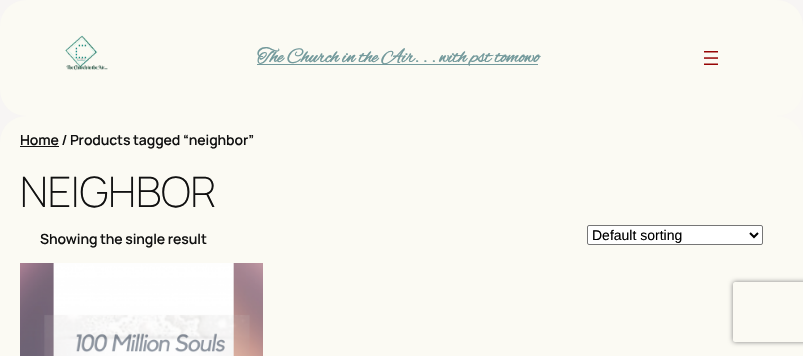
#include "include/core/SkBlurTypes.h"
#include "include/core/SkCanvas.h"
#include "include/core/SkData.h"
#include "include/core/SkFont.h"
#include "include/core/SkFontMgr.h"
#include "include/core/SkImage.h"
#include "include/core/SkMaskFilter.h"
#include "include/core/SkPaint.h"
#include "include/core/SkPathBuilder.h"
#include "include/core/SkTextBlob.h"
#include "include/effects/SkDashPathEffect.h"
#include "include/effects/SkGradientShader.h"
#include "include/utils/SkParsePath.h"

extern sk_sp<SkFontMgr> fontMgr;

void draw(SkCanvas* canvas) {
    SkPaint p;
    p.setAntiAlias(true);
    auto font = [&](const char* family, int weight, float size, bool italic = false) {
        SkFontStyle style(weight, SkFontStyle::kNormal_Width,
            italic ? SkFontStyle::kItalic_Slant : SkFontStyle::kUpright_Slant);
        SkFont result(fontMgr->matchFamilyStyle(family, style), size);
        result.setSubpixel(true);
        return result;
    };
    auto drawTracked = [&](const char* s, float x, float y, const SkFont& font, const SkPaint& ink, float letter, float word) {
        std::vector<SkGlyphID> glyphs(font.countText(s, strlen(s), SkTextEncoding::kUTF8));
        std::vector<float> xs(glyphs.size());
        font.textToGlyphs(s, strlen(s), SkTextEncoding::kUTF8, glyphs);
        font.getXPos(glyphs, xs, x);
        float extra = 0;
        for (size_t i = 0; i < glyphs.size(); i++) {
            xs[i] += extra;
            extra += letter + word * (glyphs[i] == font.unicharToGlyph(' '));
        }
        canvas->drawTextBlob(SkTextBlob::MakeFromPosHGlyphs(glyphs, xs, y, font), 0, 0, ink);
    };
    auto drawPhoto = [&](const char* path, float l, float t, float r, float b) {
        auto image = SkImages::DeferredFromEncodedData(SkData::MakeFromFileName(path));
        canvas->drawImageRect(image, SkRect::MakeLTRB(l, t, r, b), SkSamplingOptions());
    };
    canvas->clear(0xFFFFFFFF);
    drawPhoto("media/1.png", 0, 0, 803, 142);
    p.setColor(0xFFFBFAF3);
    canvas->drawRoundRect(SkRect::MakeLTRB(0, 0, 803, 116), 26, 26, p);
    drawPhoto("media/2.png", 65, 35, 108, 71);
    p.setColor(0xFF749A9C);
    canvas->drawRect(SkRect::MakeLTRB(257, 64, 538, 65), p);
    auto font1 = font("Alex Brush", 700, 20.25f);
    drawTracked("The Church in the Air. . . with pst tomowo", 257, 62, font1, p, -0.1f, 0);
    drawPhoto("media/3.png", 704, 51, 718, 65);
    p.setColor(0xFFFBFAF3);
    canvas->drawRoundRect(SkRect::MakeLTRB(0, 116, 803, 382), 26, 26, p);
    p.setColor(0xFF111111);
    canvas->drawRect(SkRect::MakeLTRB(20, 146, 59, 147), p);
    auto font2 = font("Manrope", 600, 14);
    drawTracked("Home / Products tagged “neighbor”", 20, 145, font2, p, -0.1f, 0);
    auto font3 = font("Manrope", 200, 42);
    drawTracked("NEIGHBOR", 20, 207, font3, p, -0.1f, 0);
    drawTracked("Showing the single result", 40, 244, font2, p, -0.1f, 0);
    p.setColor(0xFFFFFFFF);
    canvas->drawRoundRect(SkRect::MakeLTRB(587.5f, 225.5f, 762.5f, 244.5f), 1.5f, 1.5f, p);
    p.setStyle(SkPaint::kStroke_Style);
    p.setStrokeWidth(1);
    p.setColor(0xFF767676);
    canvas->drawRoundRect(SkRect::MakeLTRB(587.5f, 225.5f, 762.5f, 244.5f), 1.5f, 1.5f, p);
    p.setStrokeWidth(2);
    p.setColor(0xFF000000);
    canvas->drawPath(SkPathBuilder().moveTo(750, 233).lineTo(754, 237).lineTo(758, 233).detach(), p);
    auto font4 = font("Liberation Sans", 400, 14);
    p.setStyle(SkPaint::kFill_Style);
    canvas->drawString("Default sorting", 592, 240, font4, p);
    drawPhoto("media/4.png", 20, 263, 263, 356);
    canvas->save();
    canvas->clipPath(SkPathBuilder(SkPathFillType::kEvenOdd).moveTo(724, 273).lineTo(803, 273).lineTo(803, 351).lineTo(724, 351).close().moveTo(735, 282).lineTo(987, 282).cubicTo(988, 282, 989, 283, 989, 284).lineTo(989, 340).cubicTo(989, 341, 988, 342, 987, 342).lineTo(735, 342).cubicTo(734, 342, 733, 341, 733, 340).lineTo(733, 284).cubicTo(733, 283, 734, 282, 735, 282).close().detach(), true);
    p.setColor(0xFF808080);
    p.setMaskFilter(SkMaskFilter::MakeBlur(kNormal_SkBlurStyle, 2.5f));
    canvas->drawRoundRect(SkRect::MakeLTRB(733, 282, 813, 342), 2, 2, p);
    p.setMaskFilter(nullptr);
    canvas->restore();
}
